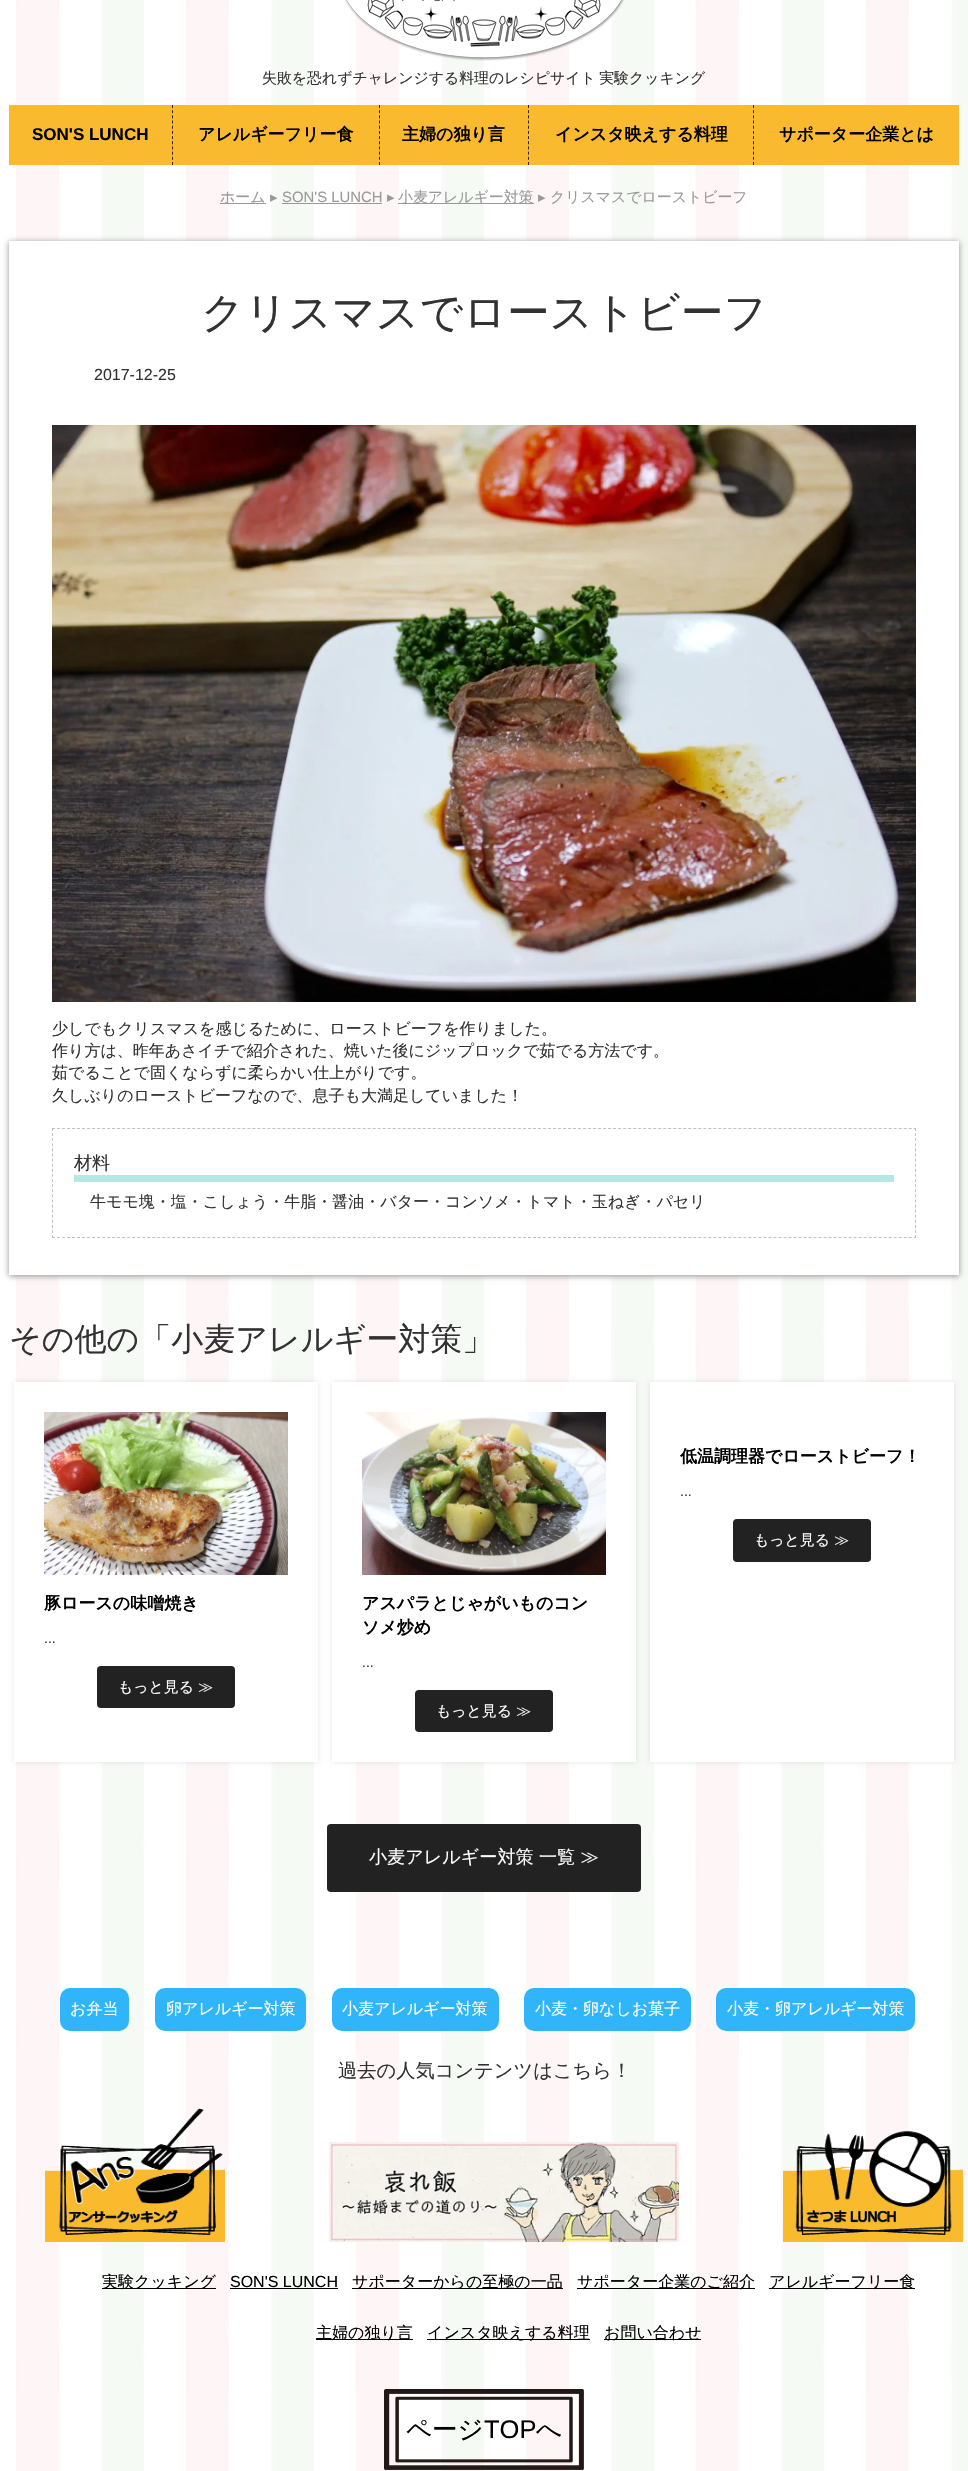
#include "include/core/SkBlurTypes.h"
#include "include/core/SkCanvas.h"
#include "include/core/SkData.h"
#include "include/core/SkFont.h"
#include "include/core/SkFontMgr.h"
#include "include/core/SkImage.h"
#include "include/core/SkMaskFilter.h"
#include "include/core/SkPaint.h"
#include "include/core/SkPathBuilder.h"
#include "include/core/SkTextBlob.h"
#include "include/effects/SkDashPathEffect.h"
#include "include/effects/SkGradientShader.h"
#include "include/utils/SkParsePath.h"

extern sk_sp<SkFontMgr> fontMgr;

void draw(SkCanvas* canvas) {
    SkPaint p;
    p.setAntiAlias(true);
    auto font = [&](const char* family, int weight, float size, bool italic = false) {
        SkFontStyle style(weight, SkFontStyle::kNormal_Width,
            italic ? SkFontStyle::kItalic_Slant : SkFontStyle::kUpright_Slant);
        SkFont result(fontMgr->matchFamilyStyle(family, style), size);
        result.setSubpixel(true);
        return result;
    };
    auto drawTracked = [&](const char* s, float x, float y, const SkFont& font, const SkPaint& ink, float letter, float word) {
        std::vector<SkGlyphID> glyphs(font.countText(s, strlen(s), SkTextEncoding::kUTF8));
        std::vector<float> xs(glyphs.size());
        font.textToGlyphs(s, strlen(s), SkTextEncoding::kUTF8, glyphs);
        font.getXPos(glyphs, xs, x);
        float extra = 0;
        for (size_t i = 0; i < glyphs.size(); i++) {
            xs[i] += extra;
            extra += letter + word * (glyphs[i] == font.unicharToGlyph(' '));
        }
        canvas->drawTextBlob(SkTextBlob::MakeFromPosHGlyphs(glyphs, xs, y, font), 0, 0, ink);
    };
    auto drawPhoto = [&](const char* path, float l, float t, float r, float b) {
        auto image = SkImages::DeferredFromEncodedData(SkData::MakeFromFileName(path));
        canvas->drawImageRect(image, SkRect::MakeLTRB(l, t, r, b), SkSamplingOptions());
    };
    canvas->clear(0xFFFFFFFF);
    drawPhoto("media/1.png", 16, 0, 968, 2471);
    drawPhoto("media/2.png", 345, 0, 624, 61);
    auto font1 = font("WenQuanYi Zen Hei", 500, 14.9f);
    p.setColor(0xFF333232);
    drawTracked("失敗を恐れずチャレンジする料理のレシピサイト 実験クッキング", 262, 83, font1, p, 0, -1);
    p.setColor(0xFFFABA2F);
    canvas->drawRect(SkRect::MakeLTRB(9, 105, 959, 165), p);
    p.setStyle(SkPaint::kStroke_Style);
    p.setStrokeWidth(1);
    p.setColor(0xFF322509);
    p.setPathEffect(SkDashPathEffect::Make({{3, 2.18f}}, 0));
    canvas->drawPath(SkPathBuilder().moveTo(172.5f, 105).lineTo(172.5f, 165).detach(), p);
    p.setPathEffect(nullptr);
    auto font2 = font("Liberation Sans", 700, 17);
    p.setStyle(SkPaint::kFill_Style);
    p.setColor(0xFF000000);
    canvas->drawString("SON'S LUNCH", 32, 140, font2, p);
    p.setStyle(SkPaint::kStroke_Style);
    p.setColor(0xFF322509);
    p.setPathEffect(SkDashPathEffect::Make({{3, 2.18f}}, 0));
    canvas->drawPath(SkPathBuilder().moveTo(379.5f, 105).lineTo(379.5f, 165).detach(), p);
    p.setPathEffect(nullptr);
    auto font3 = font("WenQuanYi Zen Hei", 700, 17);
    p.setStyle(SkPaint::kFill_Style);
    p.setColor(0xFF000000);
    canvas->drawString("アレルギーフリー食", 198, 140, font3, p);
    p.setStyle(SkPaint::kStroke_Style);
    p.setColor(0xFF322509);
    p.setPathEffect(SkDashPathEffect::Make({{3, 2.18f}}, 0));
    canvas->drawPath(SkPathBuilder().moveTo(528.5f, 105).lineTo(528.5f, 165).detach(), p);
    p.setPathEffect(nullptr);
    p.setStyle(SkPaint::kFill_Style);
    p.setColor(0xFF000000);
    canvas->drawString("主婦の独り言", 402, 140, font3, p);
    p.setStyle(SkPaint::kStroke_Style);
    p.setColor(0xFF322509);
    p.setPathEffect(SkDashPathEffect::Make({{3, 2.18f}}, 0));
    canvas->drawPath(SkPathBuilder().moveTo(753.5f, 105).lineTo(753.5f, 165).detach(), p);
    p.setPathEffect(nullptr);
    p.setStyle(SkPaint::kFill_Style);
    p.setColor(0xFF000000);
    canvas->drawString("インスタ映えする料理", 555, 140, font3, p);
    canvas->drawString("サポーター企業とは", 779, 140, font3, p);
    p.setColor(0xFF999999);
    canvas->drawRect(SkRect::MakeLTRB(220, 203, 266, 204), p);
    canvas->drawString("ホーム", 220, 202, font1, p);
    auto font4 = font("DejaVu Sans", 400, 14.9f);
    canvas->drawString("▸", 270, 202, font4, p);
    auto font5 = font("Liberation Sans", 400, 14.9f);
    canvas->drawString("SON'S LUNCH", 282, 202, font5, p);
    canvas->drawRect(SkRect::MakeLTRB(282, 203, 382, 204), p);
    canvas->drawString("▸", 387, 202, font4, p);
    canvas->drawRect(SkRect::MakeLTRB(398, 203, 534, 204), p);
    canvas->drawString("小麦アレルギー対策", 398, 202, font1, p);
    canvas->drawString("▸", 538, 202, font4, p);
    canvas->drawString("クリスマスでローストビーフ", 550, 202, font1, p);
    p.setColor(0xFF909090);
    p.setMaskFilter(SkMaskFilter::MakeBlur(kNormal_SkBlurStyle, 3));
    canvas->drawRect(SkRect::MakeLTRB(9, 242, 959, 1276), p);
    p.setMaskFilter(nullptr);
    p.setColor(0xFFFFFFFF);
    canvas->drawRect(SkRect::MakeLTRB(9, 241, 959, 1275), p);
    auto font6 = font("WenQuanYi Zen Hei", 500, 42.7f);
    p.setColor(0xFF333232);
    canvas->drawString("クリスマスでローストビーフ", 201, 327, font6, p);
    auto font7 = font("Liberation Sans", 400, 16);
    canvas->drawString("2017-12-25", 94, 380, font7, p);
    drawPhoto("media/3.png", 52, 425, 916, 1002);
    auto font8 = font("WenQuanYi Zen Hei", 500, 16);
    {
        const struct { const char* s; float x, y; } items[] = {
            {"少しでもクリスマスを感じるために、ローストビーフを作りました。", 52, 1034},
            {"作り方は、昨年あさイチで紹介された、焼いた後にジップロックで茹でる方法です。", 52, 1056},
            {"茹でることで固くならずに柔らかい仕上がりです。", 52, 1078},
            {"久しぶりのローストビーフなので、息子も大満足していました！", 52, 1101},
        };
        for (auto [s, x, y] : items) {
            canvas->drawString(s, x, y, font8, p);
        }
    }
    p.setStyle(SkPaint::kStroke_Style);
    p.setColor(0xFFC1C1C1);
    p.setPathEffect(SkDashPathEffect::Make({{3, 2.01f}}, 0));
    canvas->drawPath(SkPathBuilder().moveTo(52, 1128.5f).lineTo(916, 1128.5f).detach(), p);
    p.setPathEffect(nullptr);
    p.setPathEffect(SkDashPathEffect::Make({{3, 2.1f}}, 0));
    canvas->drawPath(SkPathBuilder().moveTo(915.5f, 1128).lineTo(915.5f, 1238).detach(), p);
    p.setPathEffect(nullptr);
    p.setPathEffect(SkDashPathEffect::Make({{3, 2.01f}}, 0));
    canvas->drawPath(SkPathBuilder().moveTo(52, 1237.5f).lineTo(916, 1237.5f).detach(), p);
    p.setPathEffect(nullptr);
    p.setPathEffect(SkDashPathEffect::Make({{3, 2.1f}}, 0));
    canvas->drawPath(SkPathBuilder().moveTo(52.5f, 1128).lineTo(52.5f, 1238).detach(), p);
    p.setPathEffect(nullptr);
    auto font9 = font("WenQuanYi Zen Hei", 500, 18.1f);
    p.setStyle(SkPaint::kFill_Style);
    p.setColor(0xFF333232);
    canvas->drawString("材料", 74, 1169, font9, p);
    p.setColor(0xFFB5E8E4);
    canvas->drawRect(SkRect::MakeLTRB(74, 1175, 894, 1182), p);
    p.setColor(0xFF333232);
    canvas->drawString("牛モモ塊・塩・こしょう・牛脂・醤油・バター・コンソメ・トマト・玉ねぎ・パセリ", 90, 1207, font8, p);
    auto font10 = font("WenQuanYi Zen Hei", 500, 32);
    canvas->drawString("その他の「小麦アレルギー対策」", 9, 1350, font10, p);
    p.setColor(0x1A000000);
    p.setMaskFilter(SkMaskFilter::MakeBlur(kNormal_SkBlurStyle, 2.5f));
    canvas->drawRect(SkRect::MakeLTRB(650, 1382, 954, 1762), p);
    p.setMaskFilter(nullptr);
    p.setColor(0xFFFFFFFF);
    canvas->drawRect(SkRect::MakeLTRB(650, 1382, 954, 1762), p);
    p.setColor(0xFF000000);
    canvas->drawString("低温調理器でローストビーフ！", 680, 1462, font3, p);
    auto font11 = font("Liberation Sans", 400, 14);
    p.setColor(0xFF333232);
    canvas->drawString("...", 680, 1496, font11, p);
    p.setColor(0xFF222222);
    canvas->drawRoundRect(SkRect::MakeLTRB(733, 1519, 871, 1562), 4, 4, p);
    p.setColor(0xFFFFFFFF);
    canvas->drawString("もっと見る ≫", 754, 1545, font1, p);
    p.setColor(0x1A000000);
    p.setMaskFilter(SkMaskFilter::MakeBlur(kNormal_SkBlurStyle, 2.5f));
    canvas->drawRect(SkRect::MakeLTRB(14, 1382, 318, 1762), p);
    p.setMaskFilter(nullptr);
    p.setColor(0xFFFFFFFF);
    canvas->drawRect(SkRect::MakeLTRB(14, 1382, 318, 1762), p);
    drawPhoto("media/4.png", 44, 1412, 288, 1575);
    p.setColor(0xFF000000);
    canvas->drawString("豚ロースの味噌焼き", 44, 1609, font3, p);
    p.setColor(0xFF333232);
    canvas->drawString("...", 44, 1643, font11, p);
    p.setColor(0xFF222222);
    canvas->drawRoundRect(SkRect::MakeLTRB(97, 1666, 235, 1708), 4, 4, p);
    p.setColor(0xFFFFFFFF);
    canvas->drawString("もっと見る ≫", 118, 1692, font1, p);
    p.setColor(0x1A000000);
    p.setMaskFilter(SkMaskFilter::MakeBlur(kNormal_SkBlurStyle, 2.5f));
    canvas->drawRect(SkRect::MakeLTRB(332, 1382, 636, 1762), p);
    p.setMaskFilter(nullptr);
    p.setColor(0xFFFFFFFF);
    canvas->drawRect(SkRect::MakeLTRB(332, 1382, 636, 1762), p);
    drawPhoto("media/5.png", 362, 1412, 606, 1575);
    p.setColor(0xFF000000);
    canvas->drawString("アスパラとじゃがいものコン", 362, 1609, font3, p);
    canvas->drawString("ソメ炒め", 362, 1633, font3, p);
    p.setColor(0xFF333232);
    canvas->drawString("...", 362, 1667, font11, p);
    p.setColor(0xFF222222);
    canvas->drawRoundRect(SkRect::MakeLTRB(415, 1690, 553, 1732), 4, 4, p);
    p.setColor(0xFFFFFFFF);
    canvas->drawString("もっと見る ≫", 436, 1716, font1, p);
    p.setColor(0xFF222222);
    canvas->drawRoundRect(SkRect::MakeLTRB(327, 1824, 641, 1892), 4, 4, p);
    p.setColor(0xFFFFFFFF);
    canvas->drawString("小麦アレルギー対策 一覧 ≫", 369, 1863, font9, p);
    p.setColor(0xFF30B5FB);
    canvas->drawRoundRect(SkRect::MakeLTRB(60, 1988, 129, 2031), 10, 10, p);
    p.setColor(0xFFFFFFFF);
    canvas->drawString("お弁当", 70, 2014, font8, p);
    p.setColor(0xFF30B5FB);
    canvas->drawRoundRect(SkRect::MakeLTRB(155, 1988, 306, 2031), 10, 10, p);
    p.setColor(0xFFFFFFFF);
    canvas->drawString("卵アレルギー対策", 166, 2014, font8, p);
    p.setColor(0xFF30B5FB);
    canvas->drawRoundRect(SkRect::MakeLTRB(332, 1988, 499, 2031), 10, 10, p);
    p.setColor(0xFFFFFFFF);
    canvas->drawString("小麦アレルギー対策", 342, 2014, font8, p);
    p.setColor(0xFF30B5FB);
    canvas->drawRoundRect(SkRect::MakeLTRB(524, 1988, 691, 2031), 10, 10, p);
    p.setColor(0xFFFFFFFF);
    canvas->drawString("小麦・卵なしお菓子", 535, 2014, font8, p);
    p.setColor(0xFF30B5FB);
    canvas->drawRoundRect(SkRect::MakeLTRB(716, 1988, 915, 2031), 10, 10, p);
    p.setColor(0xFFFFFFFF);
    canvas->drawString("小麦・卵アレルギー対策", 727, 2014, font8, p);
    auto font12 = font("WenQuanYi Zen Hei", 500, 19.25f);
    p.setColor(0xFF333232);
    canvas->drawString("過去の人気コンテンツはこちら！", 338, 2077, font12, p);
    drawPhoto("media/6.png", 45, 2108, 225, 2242);
    drawPhoto("media/7.png", 59, 2108, 223, 2235);
    drawPhoto("media/8.png", 329, 2142, 679, 2242);
    drawPhoto("media/9.png", 783, 2131, 963, 2242);
    drawPhoto("media/10.png", 795, 2131, 952, 2235);
    p.setColor(0xFF000000);
    canvas->drawRect(SkRect::MakeLTRB(102, 2288, 216, 2289), p);
    canvas->drawString("実験クッキング", 102, 2287, font8, p);
    canvas->drawString("SON'S LUNCH", 230, 2287, font7, p);
    canvas->drawRect(SkRect::MakeLTRB(230, 2288, 338, 2289), p);
    canvas->drawRect(SkRect::MakeLTRB(352, 2288, 563, 2289), p);
    canvas->drawString("サポーターからの至極の一品", 352, 2287, font8, p);
    canvas->drawRect(SkRect::MakeLTRB(577, 2288, 755, 2289), p);
    canvas->drawString("サポーター企業のご紹介", 577, 2287, font8, p);
    canvas->drawRect(SkRect::MakeLTRB(769, 2288, 915, 2289), p);
    canvas->drawString("アレルギーフリー食", 769, 2287, font8, p);
    canvas->drawRect(SkRect::MakeLTRB(316, 2339, 413, 2340), p);
    canvas->drawString("主婦の独り言", 316, 2338, font8, p);
    canvas->drawRect(SkRect::MakeLTRB(427, 2339, 590, 2340), p);
    canvas->drawString("インスタ映えする料理", 427, 2338, font8, p);
    canvas->drawRect(SkRect::MakeLTRB(604, 2339, 701, 2340), p);
    canvas->drawString("お問い合わせ", 604, 2338, font8, p);
    drawPhoto("media/11.png", 384, 2389, 584, 2470);
    auto font13 = font("WenQuanYi Zen Hei", 500, 25.5f);
    canvas->drawString("ページ", 406, 2438, font13, p);
    auto font14 = font("Liberation Sans", 400, 25.5f);
    canvas->drawString("TOP", 484, 2438, font14, p);
    canvas->drawString("へ", 536, 2438, font13, p);
}
